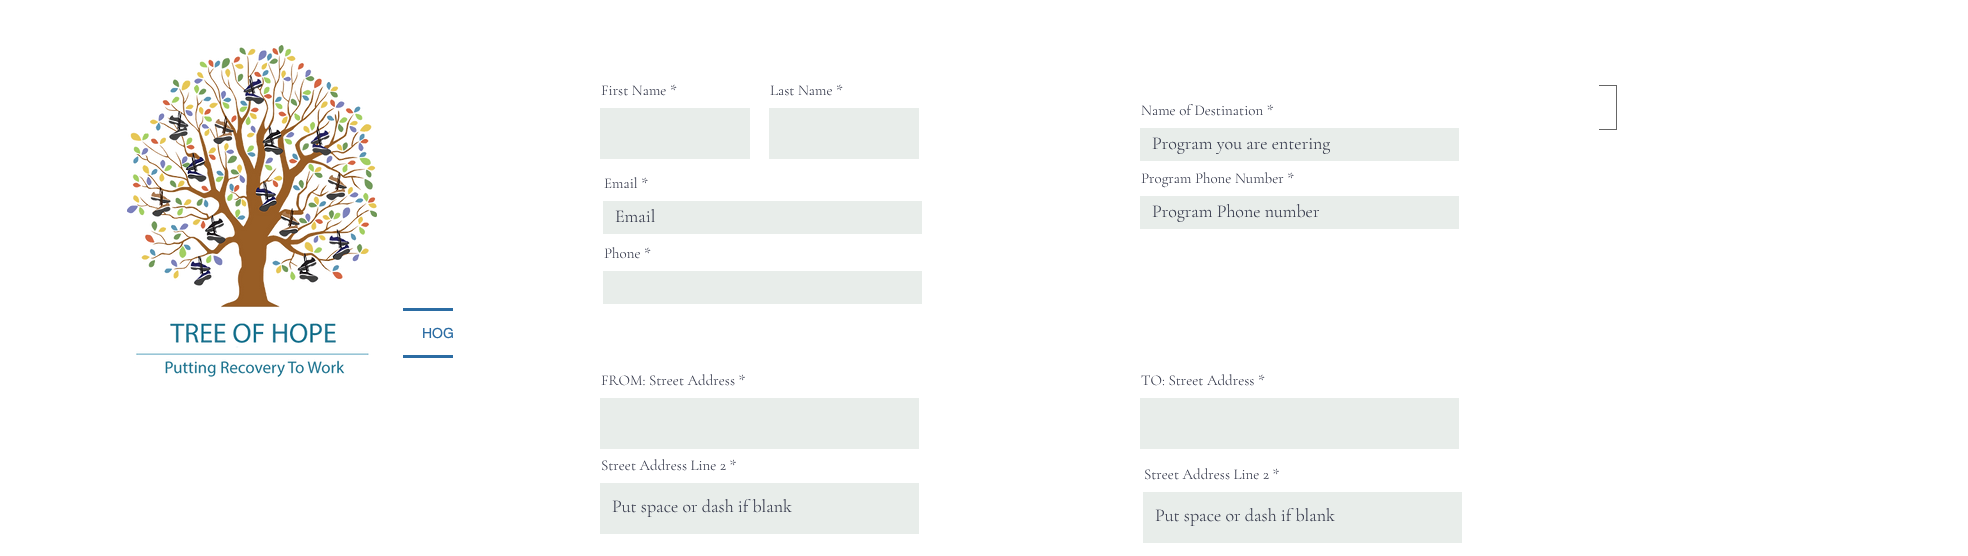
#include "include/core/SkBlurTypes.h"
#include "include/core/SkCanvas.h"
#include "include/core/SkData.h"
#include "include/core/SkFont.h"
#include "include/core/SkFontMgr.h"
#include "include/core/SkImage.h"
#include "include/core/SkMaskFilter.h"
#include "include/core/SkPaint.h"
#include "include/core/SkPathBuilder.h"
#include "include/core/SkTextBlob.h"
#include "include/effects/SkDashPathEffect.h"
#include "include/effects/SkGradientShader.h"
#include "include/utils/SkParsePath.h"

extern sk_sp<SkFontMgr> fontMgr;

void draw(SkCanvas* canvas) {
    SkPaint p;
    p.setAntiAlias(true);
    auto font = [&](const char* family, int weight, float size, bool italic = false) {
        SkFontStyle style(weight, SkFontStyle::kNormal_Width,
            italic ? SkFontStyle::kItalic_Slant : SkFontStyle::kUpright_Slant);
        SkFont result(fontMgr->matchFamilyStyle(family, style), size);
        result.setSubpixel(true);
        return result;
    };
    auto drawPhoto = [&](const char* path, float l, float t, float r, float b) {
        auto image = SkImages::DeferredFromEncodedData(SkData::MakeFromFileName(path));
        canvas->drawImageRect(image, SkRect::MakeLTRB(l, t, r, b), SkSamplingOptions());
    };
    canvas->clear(0xFFFFFFFF);
    drawPhoto("media/1.png", 127, 45, 377, 377);
    p.setStyle(SkPaint::kStroke_Style);
    p.setStrokeWidth(1);
    p.setColor(0xFF666666);
    canvas->drawRect(SkRect::MakeLTRB(1312.5f, 85.5f, 1616.5f, 129.5f), p);
    p.setStyle(SkPaint::kFill_Style);
    p.setColor(0xFF2B6CA3);
    canvas->drawRect(SkRect::MakeLTRB(403, 308, 453, 311), p);
    canvas->drawRect(SkRect::MakeLTRB(403, 355, 453, 358), p);
    auto font1 = font("helvetica", 400, 14);
    canvas->drawString("HOG", 422, 338, font1, p);
    auto font2 = font("Cormorant Garamond", 300, 15);
    p.setColor(0xFF373B4D);
    canvas->drawString("First Name *", 601, 95, font2, p);
    p.setColor(0xFFE8EDEA);
    canvas->drawRect(SkRect::MakeLTRB(600, 108, 750, 159), p);
    p.setColor(0xFF373B4D);
    canvas->drawString("Last Name *", 770, 95, font2, p);
    p.setColor(0xFFE8EDEA);
    canvas->drawRect(SkRect::MakeLTRB(769, 108, 919, 159), p);
    p.setColor(0xFF373B4D);
    canvas->drawString("Name of Destination *", 1141, 115, font2, p);
    p.setColor(0xFFFFFFFF);
    canvas->drawRect(SkRect::MakeLTRB(1312, 85, 1599, 130), p);
    p.setColor(0xFFE8EDEA);
    canvas->drawRect(SkRect::MakeLTRB(1140, 128, 1459, 161), p);
    auto font3 = font("Cormorant Garamond", 300, 18);
    p.setColor(0xFF373B4D);
    canvas->drawString("Program you are entering", 1152, 149, font3, p);
    canvas->drawString("Email *", 604, 188, font2, p);
    p.setColor(0xFFE8EDEA);
    canvas->drawRect(SkRect::MakeLTRB(603, 201, 922, 234), p);
    p.setColor(0xFF373B4D);
    canvas->drawString("Email", 615, 222, font3, p);
    canvas->drawString("Program Phone Number *", 1141, 183, font2, p);
    p.setColor(0xFFE8EDEA);
    canvas->drawRect(SkRect::MakeLTRB(1140, 196, 1459, 229), p);
    p.setColor(0xFF373B4D);
    canvas->drawString("Program Phone number", 1152, 217, font3, p);
    canvas->drawString("Phone *", 604, 258, font2, p);
    p.setColor(0xFFE8EDEA);
    canvas->drawRect(SkRect::MakeLTRB(603, 271, 922, 304), p);
    p.setColor(0xFF373B4D);
    canvas->drawString("FROM: Street Address *", 601, 385, font2, p);
    p.setColor(0xFFE8EDEA);
    canvas->drawRect(SkRect::MakeLTRB(600, 398, 919, 449), p);
    p.setColor(0xFF373B4D);
    canvas->drawString("Street Address Line 2 *", 601, 470, font2, p);
    p.setColor(0xFFE8EDEA);
    canvas->drawRect(SkRect::MakeLTRB(600, 483, 919, 534), p);
    p.setColor(0xFF373B4D);
    canvas->drawString("Put space or dash if blank", 612, 512, font3, p);
    canvas->drawString("TO: Street Address *", 1141, 385, font2, p);
    p.setColor(0xFFE8EDEA);
    canvas->drawRect(SkRect::MakeLTRB(1140, 398, 1459, 449), p);
    p.setColor(0xFF373B4D);
    canvas->drawString("Street Address Line 2 *", 1144, 479, font2, p);
    p.setColor(0xFFE8EDEA);
    canvas->drawRect(SkRect::MakeLTRB(1143, 492, 1462, 543), p);
    p.setColor(0xFF373B4D);
    canvas->drawString("Put space or dash if blank", 1155, 521, font3, p);
}
